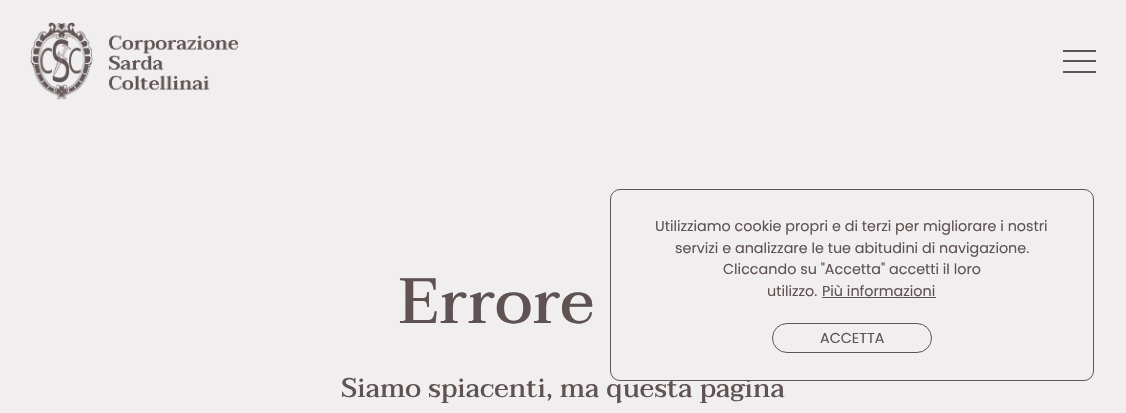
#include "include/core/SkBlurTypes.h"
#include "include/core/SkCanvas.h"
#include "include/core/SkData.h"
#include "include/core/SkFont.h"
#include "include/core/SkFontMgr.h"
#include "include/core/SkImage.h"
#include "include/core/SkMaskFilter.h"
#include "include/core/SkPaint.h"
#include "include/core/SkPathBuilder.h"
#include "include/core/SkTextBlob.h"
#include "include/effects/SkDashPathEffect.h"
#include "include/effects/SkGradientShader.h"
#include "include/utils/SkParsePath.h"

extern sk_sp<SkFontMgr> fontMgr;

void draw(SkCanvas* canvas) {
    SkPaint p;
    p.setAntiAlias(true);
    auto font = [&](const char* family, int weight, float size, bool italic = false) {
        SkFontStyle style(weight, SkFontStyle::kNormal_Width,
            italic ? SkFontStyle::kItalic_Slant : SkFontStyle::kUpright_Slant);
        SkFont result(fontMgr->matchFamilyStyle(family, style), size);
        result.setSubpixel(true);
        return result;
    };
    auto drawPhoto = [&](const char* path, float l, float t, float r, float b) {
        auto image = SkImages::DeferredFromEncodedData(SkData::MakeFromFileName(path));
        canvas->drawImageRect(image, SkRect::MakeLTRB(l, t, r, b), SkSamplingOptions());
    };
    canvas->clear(0xFFF0EEEF);
    drawPhoto("media/1.png", 30, 22, 238, 100);
    {
        const struct { float l, t, r, b; SkColor color; } items[] = {
            {1063, 60, 1096, 62, 0xFF5F5252},
            {1063, 50, 1096, 52, 0xFF5F5252},
            {1063, 71, 1096, 73, 0xFF5F5252},
        };
        for (auto [l, t, r, b, color] : items) {
            p.setColor(color);
            canvas->drawRect(SkRect::MakeLTRB(l, t, r, b), p);
        }
    }
    auto font1 = font("Taviraj", 500, 64);
    canvas->drawString("Errore", 399, 323, font1, p);
    auto font2 = font("Taviraj", 500, 27);
    canvas->drawString("Siamo spiacenti, ma questa pagina", 341, 397, font2, p);
    p.setColor(0xFFF0EEEF);
    canvas->drawRoundRect(SkRect::MakeLTRB(610.5f, 189.5f, 1093.5f, 380.5f), 9.5f, 9.5f, p);
    p.setStyle(SkPaint::kStroke_Style);
    p.setStrokeWidth(1);
    p.setColor(0xFF5F5252);
    canvas->drawRoundRect(SkRect::MakeLTRB(610.5f, 189.5f, 1093.5f, 380.5f), 9.5f, 9.5f, p);
    auto font3 = font("Poppins", 400, 14.35f);
    p.setStyle(SkPaint::kFill_Style);
    {
        const struct { const char* s; float x, y; } items[] = {
            {"Utilizziamo cookie propri e di terzi per migliorare i nostri", 655, 231},
            {"servizi e analizzare le tue abitudini di navigazione.", 675, 253},
            {"Cliccando su \"Accetta\" accetti il loro", 723, 274},
            {"utilizzo.", 767, 296},
            {"Più informazioni", 822, 296},
        };
        for (auto [s, x, y] : items) {
            canvas->drawString(s, x, y, font3, p);
        }
    }
    canvas->drawRect(SkRect::MakeLTRB(822, 297, 936, 298), p);
    p.setStyle(SkPaint::kStroke_Style);
    canvas->drawRoundRect(SkRect::MakeLTRB(772.5f, 323.5f, 931.5f, 352.5f), 14.5f, 14.5f, p);
    p.setStyle(SkPaint::kFill_Style);
    canvas->drawString("ACCETTA", 820, 343, font3, p);
}
